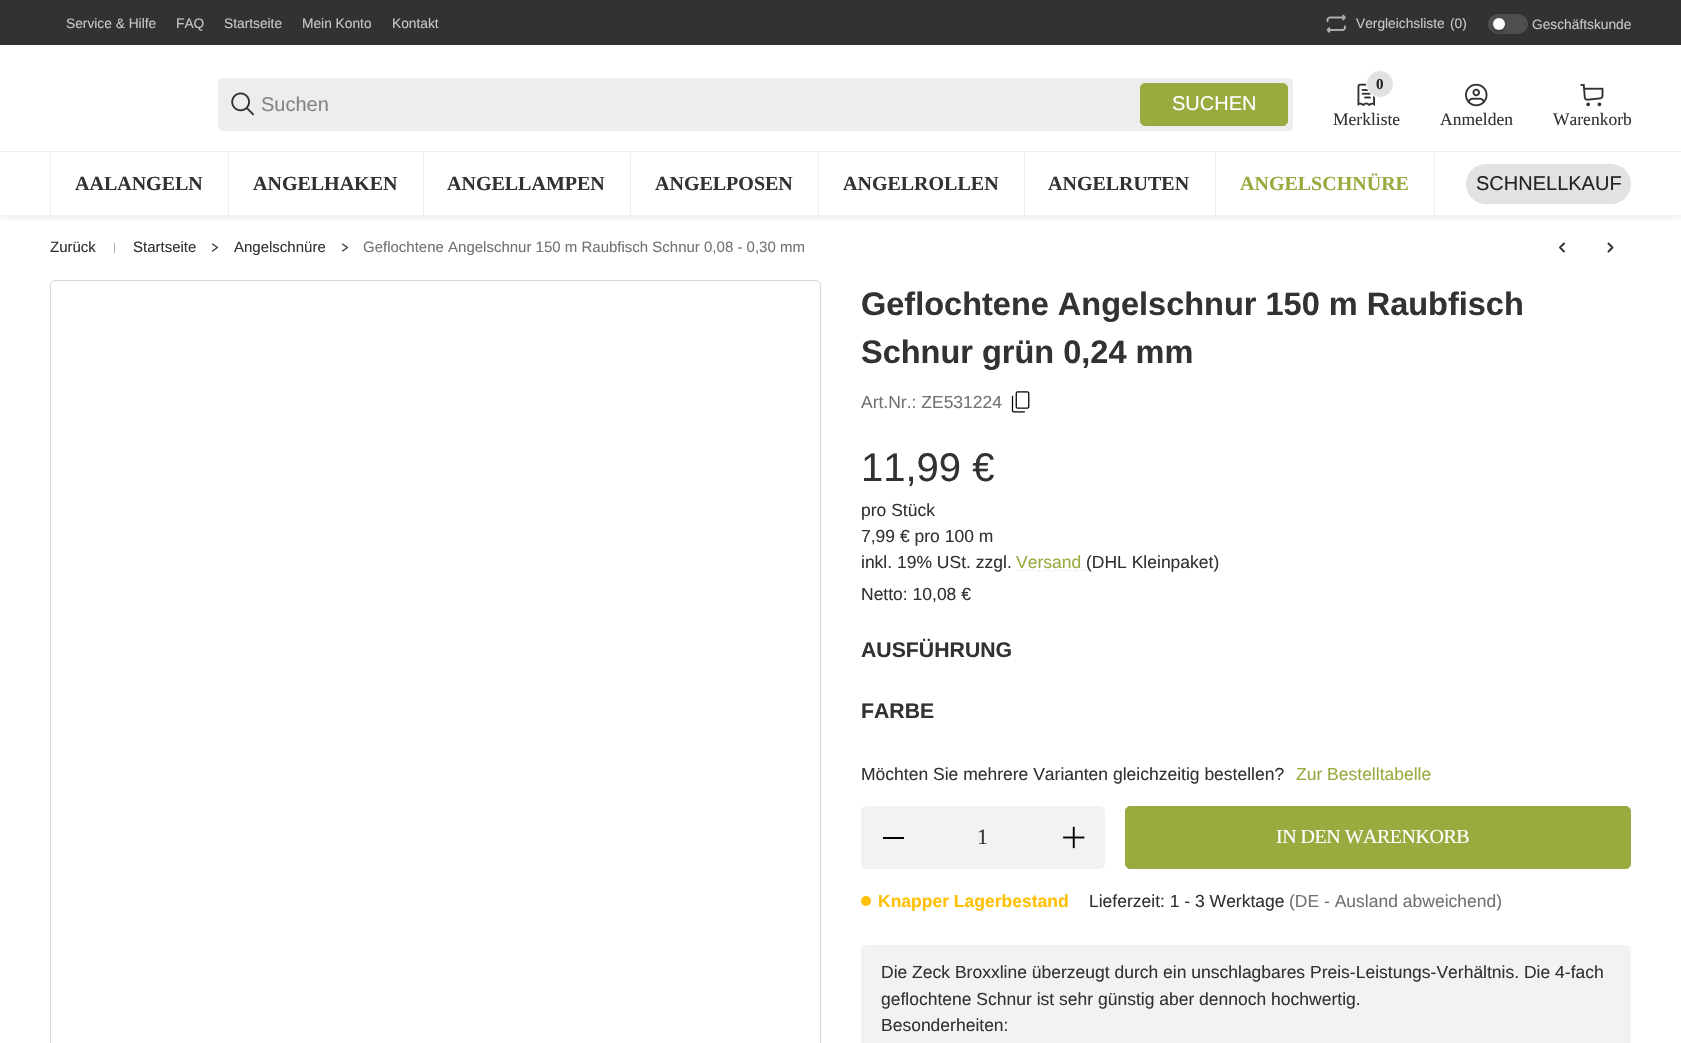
#include "include/core/SkBlurTypes.h"
#include "include/core/SkCanvas.h"
#include "include/core/SkData.h"
#include "include/core/SkFont.h"
#include "include/core/SkFontMgr.h"
#include "include/core/SkImage.h"
#include "include/core/SkMaskFilter.h"
#include "include/core/SkPaint.h"
#include "include/core/SkPathBuilder.h"
#include "include/core/SkTextBlob.h"
#include "include/effects/SkDashPathEffect.h"
#include "include/effects/SkGradientShader.h"
#include "include/utils/SkParsePath.h"

extern sk_sp<SkFontMgr> fontMgr;

void draw(SkCanvas* canvas) {
    SkPaint p;
    p.setAntiAlias(true);
    auto font = [&](const char* family, int weight, float size, bool italic = false) {
        SkFontStyle style(weight, SkFontStyle::kNormal_Width,
            italic ? SkFontStyle::kItalic_Slant : SkFontStyle::kUpright_Slant);
        SkFont result(fontMgr->matchFamilyStyle(family, style), size);
        result.setSubpixel(true);
        return result;
    };
    auto drawTracked = [&](const char* s, float x, float y, const SkFont& font, const SkPaint& ink, float letter, float word) {
        std::vector<SkGlyphID> glyphs(font.countText(s, strlen(s), SkTextEncoding::kUTF8));
        std::vector<float> xs(glyphs.size());
        font.textToGlyphs(s, strlen(s), SkTextEncoding::kUTF8, glyphs);
        font.getXPos(glyphs, xs, x);
        float extra = 0;
        for (size_t i = 0; i < glyphs.size(); i++) {
            xs[i] += extra;
            extra += letter + word * (glyphs[i] == font.unicharToGlyph(' '));
        }
        canvas->drawTextBlob(SkTextBlob::MakeFromPosHGlyphs(glyphs, xs, y, font), 0, 0, ink);
    };
    auto drawPhoto = [&](const char* path, float l, float t, float r, float b) {
        auto image = SkImages::DeferredFromEncodedData(SkData::MakeFromFileName(path));
        canvas->drawImageRect(image, SkRect::MakeLTRB(l, t, r, b), SkSamplingOptions());
    };
    canvas->clear(0xFFFFFFFF);
    p.setColor(0xFF323232);
    canvas->drawRect(SkRect::MakeLTRB(0, 0, 1681, 45), p);
    auto font1 = font("Liberation Sans", 400, 13.75f);
    p.setColor(0xFFC6C6C6);
    {
        const struct { const char* s; float x, y; } items[] = {
            {"Service & Hilfe", 66, 28},
            {"FAQ", 176, 28},
            {"Startseite", 224, 28},
            {"Mein Konto", 302, 28},
            {"Kontakt", 392, 28},
        };
        for (auto [s, x, y] : items) {
            canvas->drawString(s, x, y, font1, p);
        }
    }
    drawPhoto("media/1.png", 1326, 14, 1346, 33);
    canvas->drawString("Vergleichsliste", 1356, 28, font1, p);
    canvas->drawString("(0)", 1450, 28, font1, p);
    p.setColor(0xFF4E4E4E);
    canvas->drawRoundRect(SkRect::MakeLTRB(1488.5f, 14.5f, 1527.5f, 33.5f), 9.5f, 9.5f, p);
    p.setStyle(SkPaint::kStroke_Style);
    p.setStrokeWidth(1);
    canvas->drawRoundRect(SkRect::MakeLTRB(1488.5f, 14.5f, 1527.5f, 33.5f), 9.5f, 9.5f, p);
    p.setStyle(SkPaint::kFill_Style);
    p.setColor(0x3D000000);
    p.setMaskFilter(SkMaskFilter::MakeBlur(kNormal_SkBlurStyle, 1));
    canvas->drawRoundRect(SkRect::MakeLTRB(1493, 20, 1505, 33), 6, 6, p);
    p.setMaskFilter(nullptr);
    p.setColor(0xFFFFFFFF);
    canvas->drawCircle(1499, 24, 6, p);
    p.setColor(0xFFC6C6C6);
    canvas->drawString("Geschäftskunde", 1532, 29, font1, p);
    p.setColor(0xFFEDEDED);
    canvas->drawRoundRect(SkRect::MakeLTRB(218, 78, 1293, 131), 5, 5, p);
    drawPhoto("media/2.png", 231, 92, 254, 116);
    auto font2 = font("Liberation Sans", 400, 20);
    p.setColor(0xFF848484);
    canvas->drawString("Suchen", 261, 111, font2, p);
    p.setColor(0xFF98AB3F);
    canvas->drawRoundRect(SkRect::MakeLTRB(1140.5f, 83.5f, 1287.5f, 125.5f), 4.5f, 4.5f, p);
    p.setStyle(SkPaint::kStroke_Style);
    canvas->drawRoundRect(SkRect::MakeLTRB(1140.5f, 83.5f, 1287.5f, 125.5f), 4.5f, 4.5f, p);
    p.setStyle(SkPaint::kFill_Style);
    p.setColor(0xFFFFFFFF);
    canvas->drawString("SUCHEN", 1172, 110, font2, p);
    drawPhoto("media/3.png", 1357, 83, 1375, 106);
    p.setColor(0xFFE2E2E2);
    canvas->drawCircle(1380, 84, 13.5f, p);
    p.setStyle(SkPaint::kStroke_Style);
    p.setColor(0xFFFFFFFF);
    canvas->drawCircle(1380, 84, 13.5f, p);
    auto font3 = font("Liberation Serif", 700, 15);
    p.setStyle(SkPaint::kFill_Style);
    p.setColor(0xFF222222);
    canvas->drawString("0", 1376, 89, font3, p);
    auto font4 = font("Liberation Serif", 400, 17.5f);
    p.setColor(0xFF323232);
    canvas->drawString("Merkliste", 1333, 125, font4, p);
    drawPhoto("media/4.png", 1465, 83, 1488, 107);
    canvas->drawString("Anmelden", 1440, 125, font4, p);
    drawPhoto("media/5.png", 1580, 84, 1604, 107);
    canvas->drawString("Warenkorb", 1553, 125, font4, p);
    p.setColor(0xFFEDEDED);
    canvas->drawRect(SkRect::MakeLTRB(0, 151, 1681, 152), p);
    canvas->drawRect(SkRect::MakeLTRB(50, 153, 51, 215), p);
    auto font5 = font("Liberation Serif", 700, 20);
    p.setColor(0xFF323232);
    canvas->drawString("AALANGELN", 75, 190, font5, p);
    p.setColor(0xFFEDEDED);
    canvas->drawRect(SkRect::MakeLTRB(228, 153, 229, 215), p);
    p.setColor(0xFF323232);
    canvas->drawString("ANGELHAKEN", 253, 190, font5, p);
    p.setColor(0xFFEDEDED);
    canvas->drawRect(SkRect::MakeLTRB(423, 153, 424, 215), p);
    p.setColor(0xFF323232);
    canvas->drawString("ANGELLAMPEN", 447, 190, font5, p);
    p.setColor(0xFFEDEDED);
    canvas->drawRect(SkRect::MakeLTRB(630, 153, 631, 215), p);
    p.setColor(0xFF323232);
    canvas->drawString("ANGELPOSEN", 655, 190, font5, p);
    p.setColor(0xFFEDEDED);
    canvas->drawRect(SkRect::MakeLTRB(818, 153, 819, 215), p);
    p.setColor(0xFF323232);
    canvas->drawString("ANGELROLLEN", 843, 190, font5, p);
    p.setColor(0xFFEDEDED);
    canvas->drawRect(SkRect::MakeLTRB(1024, 153, 1025, 215), p);
    p.setColor(0xFF323232);
    canvas->drawString("ANGELRUTEN", 1048, 190, font5, p);
    p.setColor(0xFFEDEDED);
    canvas->drawRect(SkRect::MakeLTRB(1215, 153, 1216, 215), p);
    p.setColor(0xFF98AB3F);
    canvas->drawString("ANGELSCHNÜRE", 1240, 190, font5, p);
    p.setColor(0xFFEDEDED);
    canvas->drawRect(SkRect::MakeLTRB(1434, 153, 1435, 215), p);
    p.setColor(0xFFE2E2E2);
    canvas->drawRoundRect(SkRect::MakeLTRB(1466, 164, 1631, 204), 20, 20, p);
    p.setColor(0xFF222222);
    canvas->drawString("SCHNELLKAUF", 1476, 190, font2, p);
    canvas->save();
    canvas->clipRect(SkRect::MakeLTRB(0, 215, 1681, 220));
    p.setColor(0x12000000);
    p.setMaskFilter(SkMaskFilter::MakeBlur(kNormal_SkBlurStyle, 4));
    canvas->drawRect(SkRect::MakeLTRB(0, 205, 1681, 218), p);
    p.setMaskFilter(nullptr);
    canvas->restore();
    auto font6 = font("Liberation Sans", 400, 15);
    p.setColor(0xFF323232);
    canvas->drawString("Zurück", 50, 252, font6, p);
    p.setColor(0xFFB1B1B1);
    canvas->drawRect(SkRect::MakeLTRB(114, 243, 115, 253), p);
    p.setColor(0xFF323232);
    canvas->drawString("Startseite", 133, 252, font6, p);
    p.setStyle(SkPaint::kStroke_Style);
    p.setStrokeWidth(1.2f);
    p.setStrokeCap(SkPaint::kRound_Cap);
    p.setStrokeJoin(SkPaint::kRound_Join);
    canvas->drawPath(SkPathBuilder().moveTo(212.5f, 251).lineTo(217.5f, 247.5f).lineTo(212.5f, 244).detach(), p);
    p.setStyle(SkPaint::kFill_Style);
    canvas->drawString("Angelschnüre", 234, 252, font6, p);
    p.setStyle(SkPaint::kStroke_Style);
    canvas->drawPath(SkPathBuilder().moveTo(342.5f, 251).lineTo(347.5f, 247.5f).lineTo(342.5f, 244).detach(), p);
    p.setStyle(SkPaint::kFill_Style);
    p.setColor(0xFF727272);
    canvas->drawString("Geflochtene Angelschnur 150 m Raubfisch Schnur 0,08 - 0,30 mm", 363, 252, font6, p);
    p.setStyle(SkPaint::kStroke_Style);
    p.setStrokeWidth(1.9f);
    p.setColor(0xFF323232);
    canvas->drawPath(SkPathBuilder().moveTo(1564, 251.5f).lineTo(1560, 247.5f).lineTo(1564, 243.5f).moveTo(1608.5f, 251.5f).lineTo(1612.5f, 247.5f).lineTo(1608.5f, 243.5f).detach(), p);
    p.setStrokeWidth(1);
    p.setStrokeCap(SkPaint::kButt_Cap);
    p.setStrokeJoin(SkPaint::kMiter_Join);
    p.setColor(0xFFD7D7D7);
    canvas->drawRoundRect(SkRect::MakeLTRB(50.5f, 280.5f, 820.5f, 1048.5f), 4.5f, 4.5f, p);
    auto font7 = font("Liberation Sans", 700, 32.5f);
    p.setStyle(SkPaint::kFill_Style);
    p.setColor(0xFF323232);
    canvas->drawString("Geflochtene Angelschnur 150 m Raubfisch", 861, 315, font7, p);
    canvas->drawString("Schnur grün 0,24 mm", 861, 363, font7, p);
    auto font8 = font("Liberation Sans", 400, 17.5f);
    p.setColor(0xFF727272);
    canvas->drawString("Art.Nr.: ZE531224", 861, 408, font8, p);
    drawPhoto("media/6.png", 1011, 391, 1030, 413);
    auto font9 = font("Liberation Sans", 400, 40);
    p.setColor(0xFF323232);
    canvas->drawString("11,99 €", 861, 481, font9, p);
    {
        const struct { const char* s; float x, y; } items[] = {
            {"pro Stück", 861, 516},
            {"7,99 € pro 100 m", 861, 542},
            {"inkl. 19% USt. zzgl.", 861, 568},
        };
        for (auto [s, x, y] : items) {
            canvas->drawString(s, x, y, font8, p);
        }
    }
    p.setColor(0xFF98AB3F);
    canvas->drawString("Versand", 1016, 568, font8, p);
    p.setStyle(SkPaint::kStroke_Style);
    p.setStrokeWidth(1.2f);
    p.setColor(0xFFE2E2E2);
    p.setPathEffect(SkDashPathEffect::Make({{1.25f, 1.25f}}, 0));
    canvas->drawPath(SkPathBuilder().moveTo(1016, 570.5f).lineTo(1086.5f, 570.5f).detach(), p);
    p.setPathEffect(nullptr);
    p.setStyle(SkPaint::kFill_Style);
    p.setColor(0xFF323232);
    canvas->drawString("(DHL Kleinpaket)", 1086, 568, font8, p);
    canvas->drawString("Netto: 10,08 €", 861, 600, font8, p);
    auto font10 = font("Liberation Sans", 700, 21.25f);
    canvas->drawString("AUSFÜHRUNG", 861, 657, font10, p);
    canvas->drawString("FARBE", 861, 718, font10, p);
    canvas->drawString("Möchten Sie mehrere Varianten gleichzeitig bestellen?", 861, 780, font8, p);
    p.setColor(0xFF98AB3F);
    canvas->drawString("Zur Bestelltabelle", 1296, 780, font8, p);
    p.setColor(0xFFF2F2F2);
    canvas->drawRoundRect(SkRect::MakeLTRB(861.5f, 806.5f, 1104.5f, 868.5f), 4.5f, 4.5f, p);
    p.setStyle(SkPaint::kStroke_Style);
    p.setStrokeWidth(1);
    canvas->drawRoundRect(SkRect::MakeLTRB(861.5f, 806.5f, 1104.5f, 868.5f), 4.5f, 4.5f, p);
    p.setStyle(SkPaint::kFill_Style);
    p.setColor(0xFF000000);
    canvas->drawRect(SkRect::MakeLTRB(883, 837, 904, 839), p);
    auto font11 = font("Liberation Serif", 400, 22);
    p.setColor(0xFF323232);
    canvas->drawString("1", 977, 844, font11, p);
    drawPhoto("media/7.png", 1063, 826, 1085, 849);
    p.setColor(0xFF98AB3F);
    canvas->drawRoundRect(SkRect::MakeLTRB(1125.5f, 806.5f, 1630.5f, 868.5f), 4.5f, 4.5f, p);
    p.setStyle(SkPaint::kStroke_Style);
    canvas->drawRoundRect(SkRect::MakeLTRB(1125.5f, 806.5f, 1630.5f, 868.5f), 4.5f, 4.5f, p);
    auto font12 = font("Liberation Serif", 400, 20);
    p.setStyle(SkPaint::kFill_Style);
    p.setColor(0xFFFFFFFF);
    drawTracked("IN DEN WARENKORB", 1276, 843, font12, p, -0.5f, 0);
    p.setColor(0xFFFFC107);
    canvas->drawCircle(866, 901, 5, p);
    auto font13 = font("Liberation Sans", 700, 17.5f);
    canvas->drawString("Knapper Lagerbestand", 878, 907, font13, p);
    p.setColor(0xFF323232);
    canvas->drawString("Lieferzeit: 1 - 3 Werktage", 1089, 907, font8, p);
    p.setColor(0xFF727272);
    canvas->drawString("(DE - Ausland abweichend)", 1289, 907, font8, p);
    p.setColor(0xFFF2F2F2);
    canvas->drawRoundRect(SkRect::MakeLTRB(861, 945, 1631, 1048), 5, 5, p);
    p.setColor(0xFF323232);
    {
        const struct { const char* s; float x, y; } items[] = {
            {"Die Zeck Broxxline überzeugt durch ein unschlagbares Preis-Leistungs-Verhältnis. Die 4-fach", 881, 978},
            {"geflochtene Schnur ist sehr günstig aber dennoch hochwertig.", 881, 1005},
            {"Besonderheiten:", 881, 1031},
        };
        for (auto [s, x, y] : items) {
            canvas->drawString(s, x, y, font8, p);
        }
    }
}
